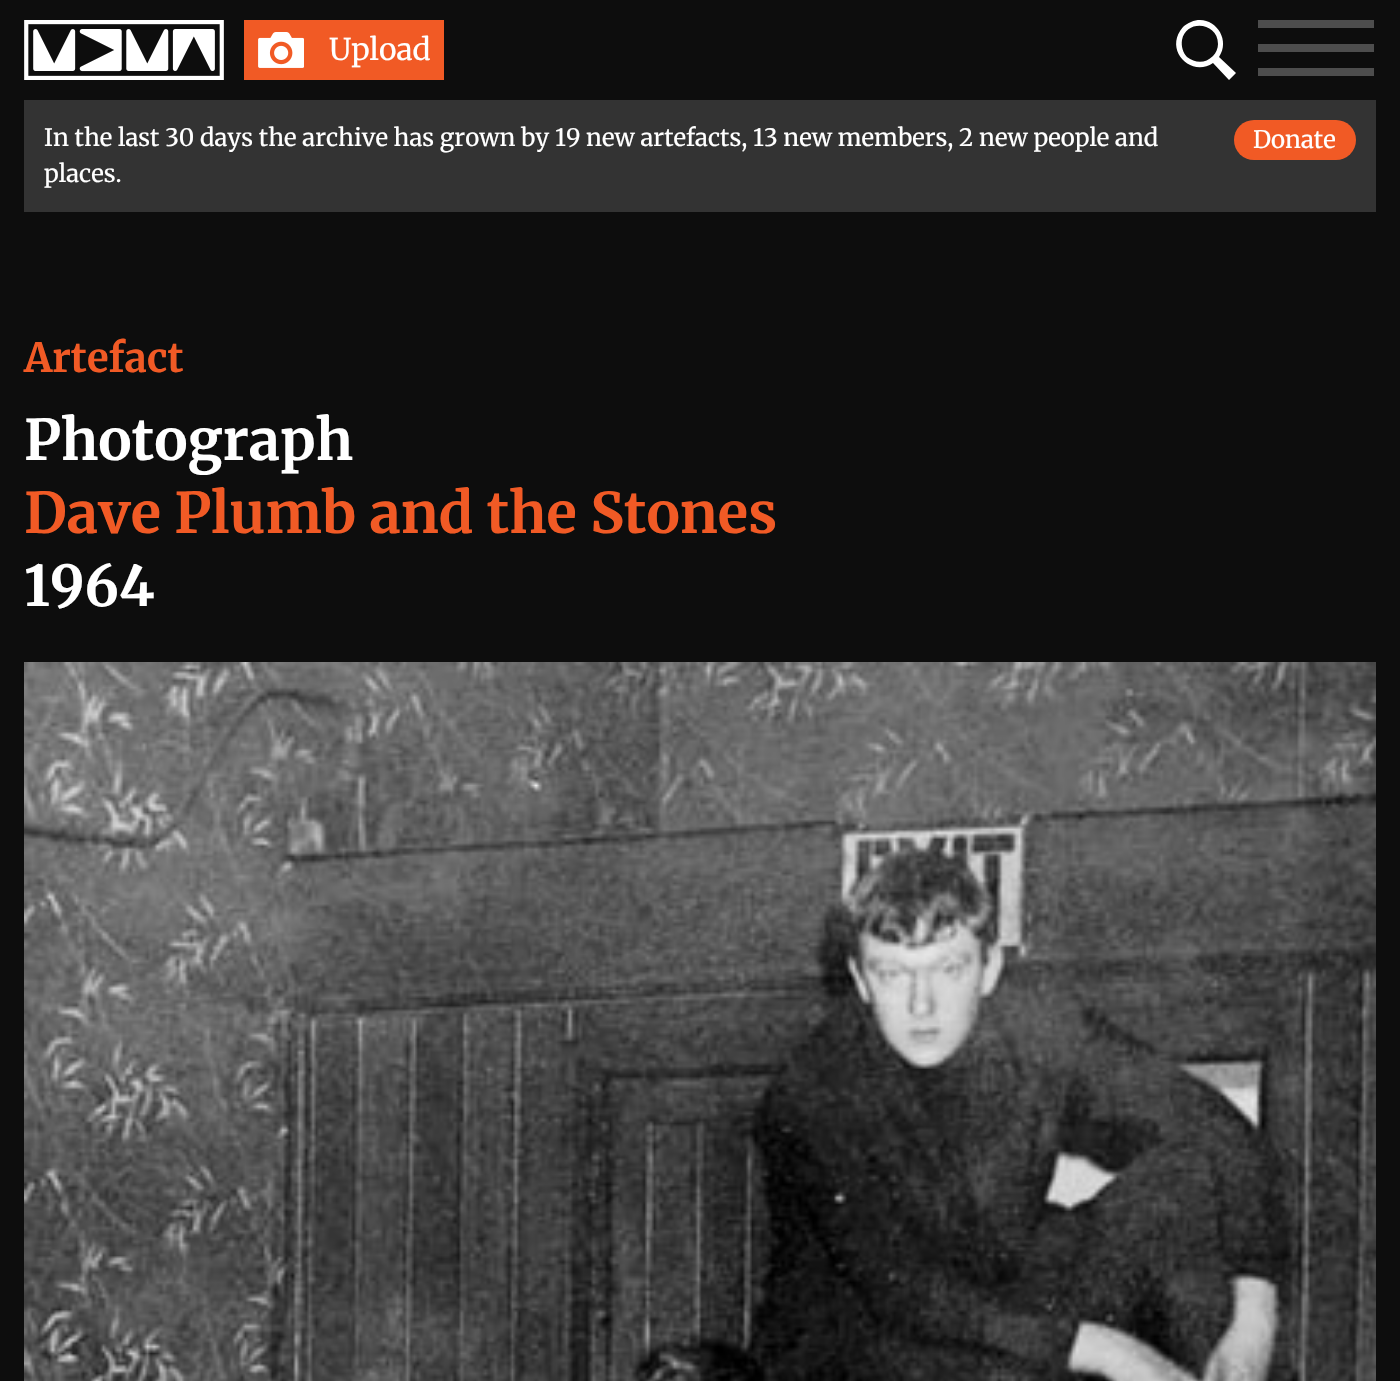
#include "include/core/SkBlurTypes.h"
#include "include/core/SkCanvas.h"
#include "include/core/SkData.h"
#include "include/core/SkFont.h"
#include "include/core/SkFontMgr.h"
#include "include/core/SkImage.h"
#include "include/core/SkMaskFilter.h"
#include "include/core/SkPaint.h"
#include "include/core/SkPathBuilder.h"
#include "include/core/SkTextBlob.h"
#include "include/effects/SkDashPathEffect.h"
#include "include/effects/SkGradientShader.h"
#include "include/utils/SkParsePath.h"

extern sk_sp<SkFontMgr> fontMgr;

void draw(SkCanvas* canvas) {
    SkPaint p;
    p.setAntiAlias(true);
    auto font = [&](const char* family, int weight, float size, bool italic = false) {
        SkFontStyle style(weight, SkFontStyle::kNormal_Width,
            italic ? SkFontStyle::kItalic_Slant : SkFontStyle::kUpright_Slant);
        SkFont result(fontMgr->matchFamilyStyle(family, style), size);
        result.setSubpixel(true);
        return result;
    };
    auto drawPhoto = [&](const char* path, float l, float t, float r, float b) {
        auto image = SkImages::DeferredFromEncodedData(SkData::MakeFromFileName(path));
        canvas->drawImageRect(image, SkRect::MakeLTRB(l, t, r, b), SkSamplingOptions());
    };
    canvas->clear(0xFF0D0D0D);
    drawPhoto("media/1.png", 24, 20, 224, 80);
    p.setColor(0xFFF15A25);
    canvas->drawRect(SkRect::MakeLTRB(244, 20, 444, 80), p);
    drawPhoto("media/2.png", 258, 32, 304, 68);
    auto font1 = font("Merriweather", 400, 30);
    p.setColor(0xFFFFFFFF);
    canvas->drawString("Upload", 329, 60, font1, p);
    canvas->drawPath(SkPathBuilder().moveTo(1219, 57).cubicTo(1232, 38, 1212, 13, 1191, 22).cubicTo(1188, 23, 1185, 25, 1183, 27).cubicTo(1163, 50, 1191, 78, 1213, 63).lineTo(1229, 80).lineTo(1236, 73).close().moveTo(1213, 56).cubicTo(1205, 64, 1195, 63, 1187, 57).cubicTo(1183, 53, 1181, 46, 1182, 40).cubicTo(1186, 19, 1218, 22, 1218, 44).cubicTo(1218, 48, 1216, 53, 1213, 56).close().detach(), p);
    {
        const struct { float l, t, r, b; SkColor color; } items[] = {
            {1258, 20, 1374, 28, 0xFF4D4D4D},
            {1258, 44, 1374, 52, 0xFF4D4D4D},
            {1258, 68, 1374, 76, 0xFF4D4D4D},
            {24, 100, 1376, 212, 0xFF333333},
        };
        for (auto [l, t, r, b, color] : items) {
            p.setColor(color);
            canvas->drawRect(SkRect::MakeLTRB(l, t, r, b), p);
        }
    }
    auto font2 = font("Merriweather", 400, 24);
    p.setColor(0xFFFFFFFF);
    canvas->drawString("In the last 30 days the archive has grown by 19 new artefacts, 13 new members, 2 new people and", 44, 146, font2, p);
    canvas->drawString("places.", 44, 182, font2, p);
    p.setColor(0xFFF15A25);
    canvas->drawRoundRect(SkRect::MakeLTRB(1234, 120, 1356, 160), 20, 20, p);
    p.setColor(0xFFFFFFFF);
    canvas->drawString("Donate", 1253, 148, font2, p);
    auto font3 = font("Merriweather", 700, 40);
    p.setColor(0xFFF15A25);
    canvas->drawString("Artefact", 24, 372, font3, p);
    auto font4 = font("Merriweather", 700, 56);
    p.setColor(0xFFFFFFFF);
    canvas->drawString("Photograph", 24, 460, font4, p);
    p.setColor(0xFFF15A25);
    canvas->drawString("Dave Plumb and the Stones", 24, 533, font4, p);
    p.setColor(0xFFFFFFFF);
    canvas->drawString("1964", 24, 606, font4, p);
    drawPhoto("media/3.png", 24, 662, 1376, 1381);
}
